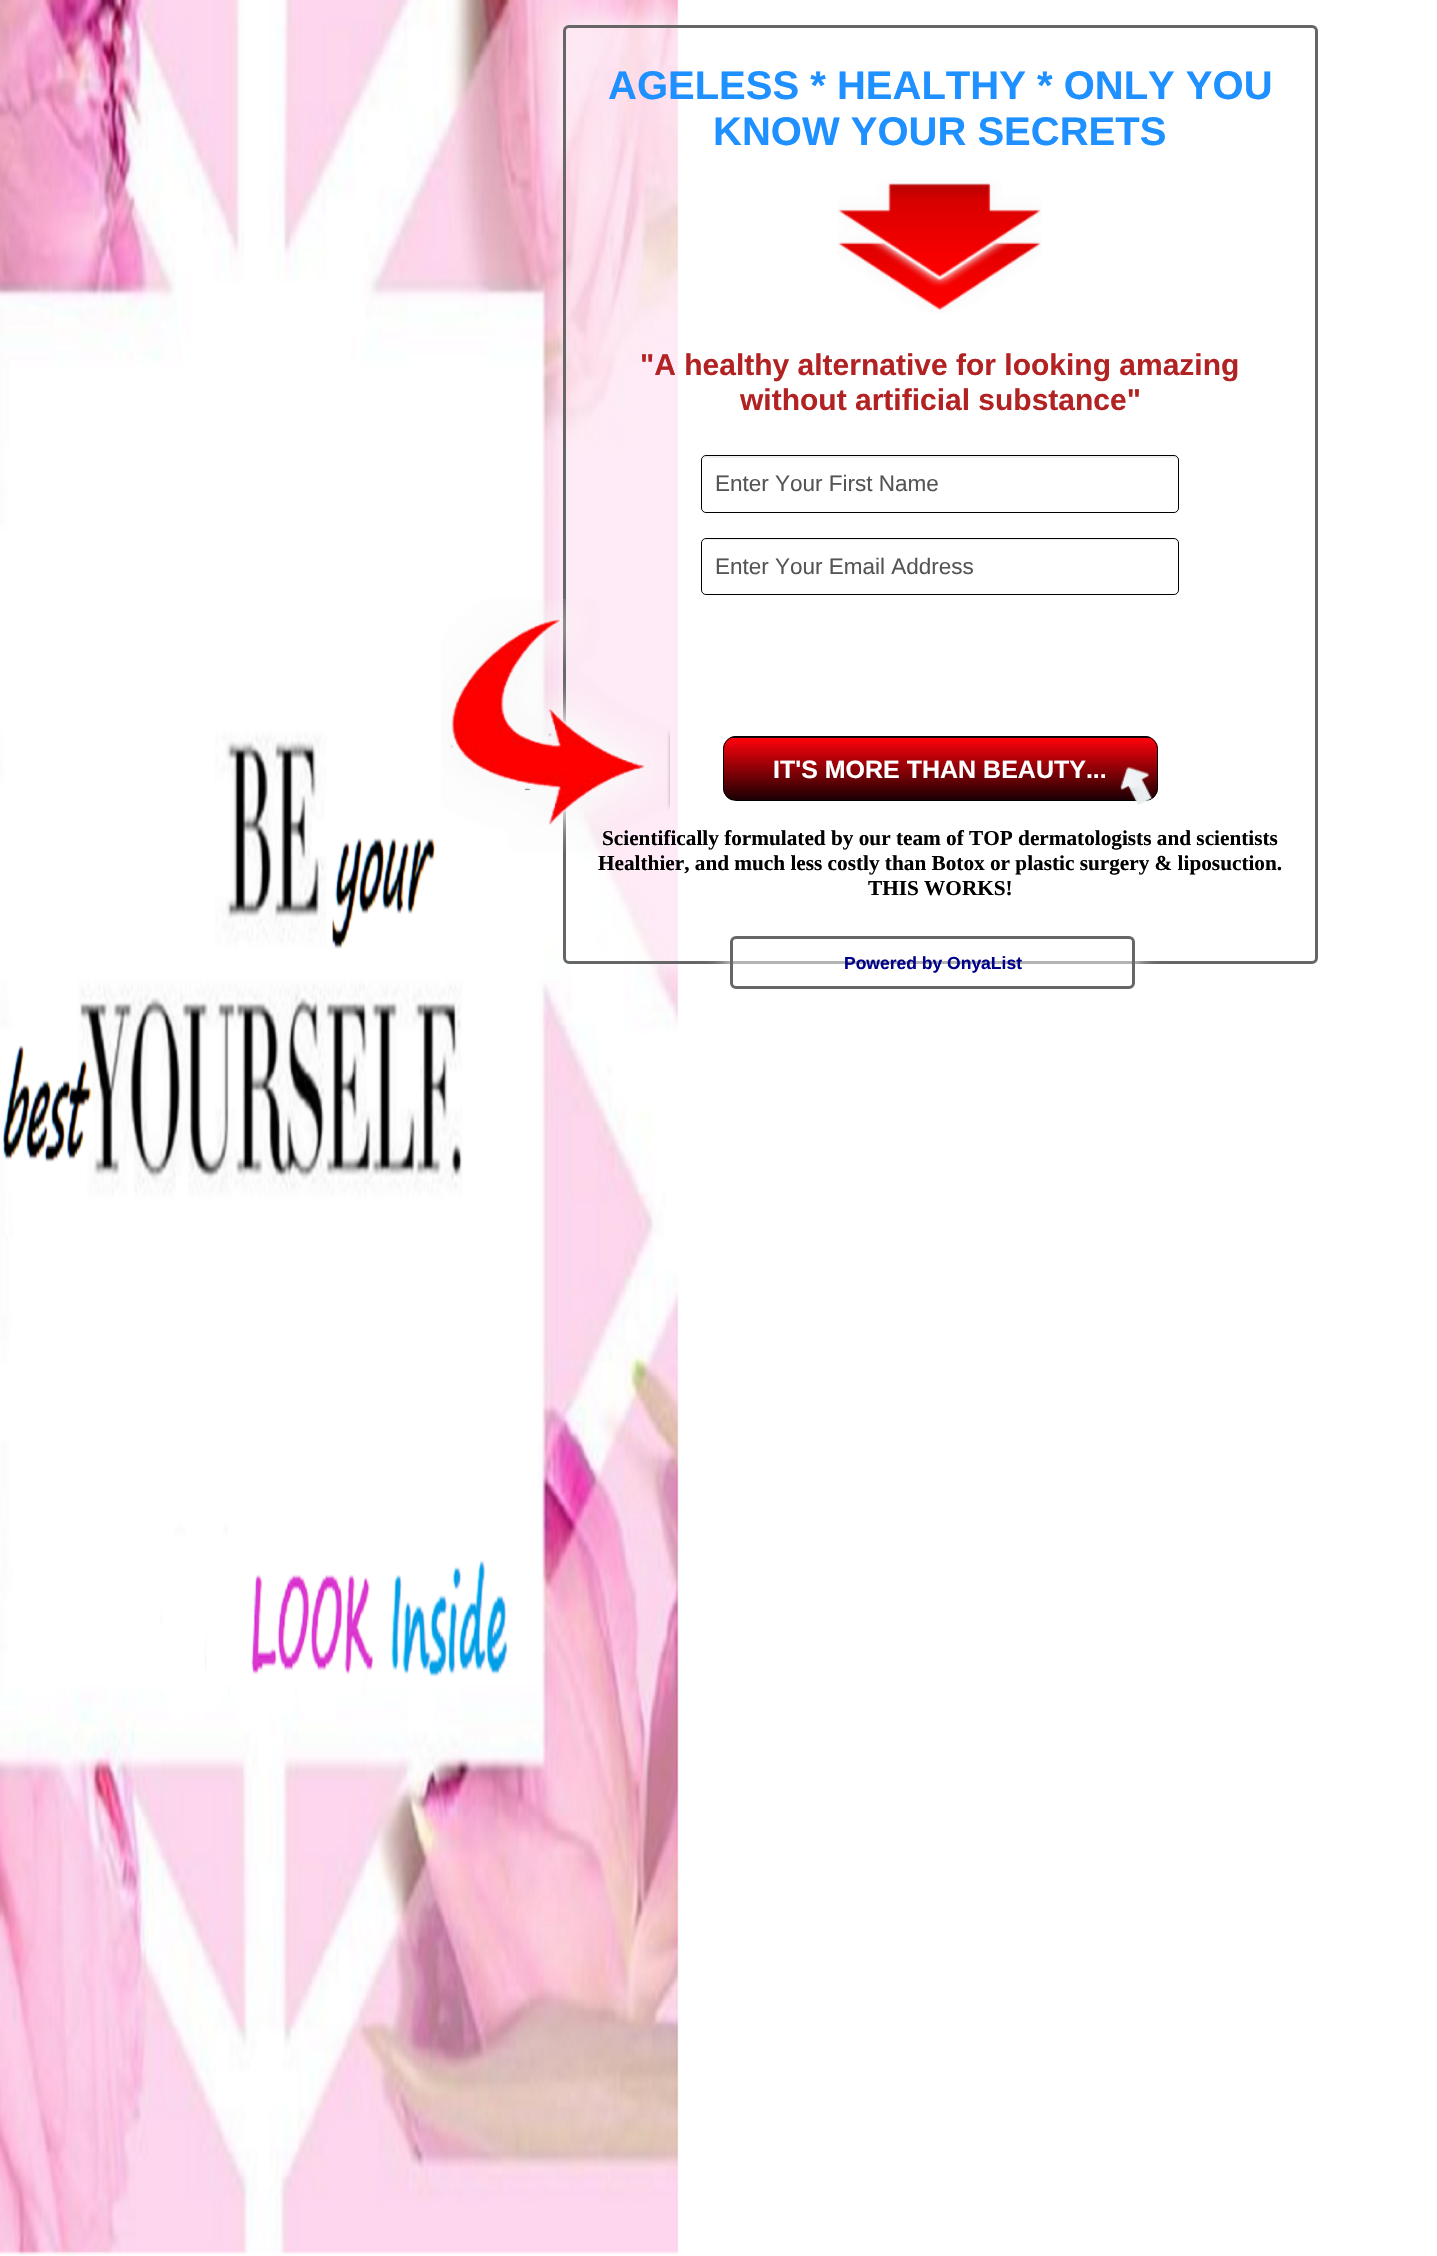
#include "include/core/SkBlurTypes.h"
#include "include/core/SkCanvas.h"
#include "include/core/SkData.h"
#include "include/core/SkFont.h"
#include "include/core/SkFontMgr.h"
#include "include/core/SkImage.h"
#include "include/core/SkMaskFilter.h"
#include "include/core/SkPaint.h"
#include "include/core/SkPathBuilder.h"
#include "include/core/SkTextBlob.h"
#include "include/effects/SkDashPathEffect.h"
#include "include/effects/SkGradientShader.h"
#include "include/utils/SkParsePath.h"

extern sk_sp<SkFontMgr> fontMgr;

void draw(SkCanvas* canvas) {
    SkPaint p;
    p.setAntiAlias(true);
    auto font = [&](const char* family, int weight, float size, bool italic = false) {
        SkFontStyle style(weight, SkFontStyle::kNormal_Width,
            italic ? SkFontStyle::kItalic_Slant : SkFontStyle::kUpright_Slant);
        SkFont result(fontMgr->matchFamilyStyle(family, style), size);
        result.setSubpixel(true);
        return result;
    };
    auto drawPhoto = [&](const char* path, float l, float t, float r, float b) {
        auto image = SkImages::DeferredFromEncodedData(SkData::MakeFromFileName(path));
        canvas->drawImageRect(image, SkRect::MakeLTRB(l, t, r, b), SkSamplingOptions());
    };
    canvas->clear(0xFFFFFFFF);
    drawPhoto("media/1.png", 0, 0, 679, 2255);
    canvas->save();
    canvas->clipPath(SkPathBuilder(SkPathFillType::kEvenOdd).moveTo(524, 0).lineTo(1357, 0).lineTo(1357, 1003).lineTo(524, 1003).close().moveTo(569, 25).lineTo(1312, 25).cubicTo(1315.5f, 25, 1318, 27.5f, 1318, 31).lineTo(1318, 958).cubicTo(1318, 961.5f, 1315.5f, 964, 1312, 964).lineTo(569, 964).cubicTo(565.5f, 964, 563, 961.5f, 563, 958).lineTo(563, 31).cubicTo(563, 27.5f, 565.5f, 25, 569, 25).close().detach(), true);
    p.setColor(0xFFFFFFFF);
    p.setMaskFilter(SkMaskFilter::MakeBlur(kNormal_SkBlurStyle, 12.5f));
    canvas->drawRoundRect(SkRect::MakeLTRB(563, 25, 1318, 964), 6, 6, p);
    p.setMaskFilter(nullptr);
    canvas->restore();
    p.setColor(0x80FFFFFF);
    canvas->drawRoundRect(SkRect::MakeLTRB(564.5f, 26.5f, 1316.5f, 962.5f), 4.5f, 4.5f, p);
    p.setStyle(SkPaint::kStroke_Style);
    p.setStrokeWidth(3);
    p.setColor(0xFF666666);
    canvas->drawRoundRect(SkRect::MakeLTRB(564.5f, 26.5f, 1316.5f, 962.5f), 4.5f, 4.5f, p);
    auto font1 = font("Liberation Sans", 700, 40);
    p.setStyle(SkPaint::kFill_Style);
    p.setColor(0xFF1E90FF);
    canvas->drawString("AGELESS * HEALTHY * ONLY YOU", 608, 99, font1, p);
    canvas->drawString("KNOW YOUR SECRETS", 713, 145, font1, p);
    drawPhoto("media/2.png", 837, 179, 1042, 313);
    auto font2 = font("Liberation Sans", 700, 30);
    p.setColor(0xFFB22222);
    canvas->drawString("\"A healthy alternative for looking amazing", 640, 375, font2, p);
    canvas->drawString("without artificial substance\"", 740, 410, font2, p);
    p.setColor(0xFFEEEEEE);
    canvas->drawPath(SkPathBuilder().moveTo(706, 458).lineTo(1174, 458).cubicTo(1176, 458, 1178, 459, 1178, 461).lineTo(1178, 460).cubicTo(1178, 458, 1176, 456, 1174, 456).lineTo(707, 456).cubicTo(705, 456, 704, 457, 703, 459).close().detach(), p);
    p.setStyle(SkPaint::kStroke_Style);
    p.setStrokeWidth(1);
    p.setColor(0xFF000000);
    canvas->drawRoundRect(SkRect::MakeLTRB(701.5f, 455.5f, 1178.5f, 512.5f), 4.5f, 4.5f, p);
    auto font3 = font("Liberation Sans", 400, 22.5f);
    p.setStyle(SkPaint::kFill_Style);
    p.setColor(0xFF555555);
    canvas->drawString("Enter Your First Name", 715, 491, font3, p);
    p.setColor(0xFFEEEEEE);
    canvas->drawPath(SkPathBuilder().moveTo(706, 540).lineTo(1174, 540).cubicTo(1176, 540, 1178, 542, 1178, 544).lineTo(1178, 543).cubicTo(1178, 541, 1176, 539, 1174, 539).lineTo(707, 539).cubicTo(706, 539, 704, 540, 704, 541).close().detach(), p);
    p.setStyle(SkPaint::kStroke_Style);
    p.setColor(0xFF000000);
    canvas->drawRoundRect(SkRect::MakeLTRB(701.5f, 538.5f, 1178.5f, 594.5f), 4.5f, 4.5f, p);
    p.setStyle(SkPaint::kFill_Style);
    p.setColor(0xFF555555);
    canvas->drawString("Enter Your Email Address", 715, 574, font3, p);
    auto font4 = font("Liberation Serif", 700, 21.25f);
    p.setColor(0xFF000000);
    canvas->drawString("Scientifically formulated by our team of TOP dermatologists and scientists", 602, 845, font4, p);
    drawPhoto("media/3.png", 441, 598, 670, 852);
    canvas->save();
    canvas->clipPath(SkPathBuilder().moveTo(736, 736).lineTo(1145, 736).cubicTo(1152, 736, 1158, 742, 1158, 749).lineTo(1158, 788).cubicTo(1158, 795, 1152, 801, 1145, 801).lineTo(736, 801).cubicTo(729, 801, 723, 795, 723, 788).lineTo(723, 749).cubicTo(723, 742, 729, 736, 736, 736).close().detach(), true);
    {
        const SkColor colors[] = {0xFFFF020B, 0xFF1A0003};
        const float stops[] = {0, 1};
        const SkPoint ends[] = {{940, 675}, {940, 738}};
        p.setShader(SkGradientShader::MakeLinear(ends, colors, stops, 2, SkTileMode::kClamp));
        p.setAlpha(255);
    }
    canvas->drawRect(SkRect::MakeLTRB(723, 736, 1158, 738), p);
    {
        const SkColor colors[] = {0xFFFF020B, 0xFF1A0003};
        const float stops[] = {0, 1};
        const SkPoint ends[] = {{940, 738}, {940, 800}};
        p.setShader(SkGradientShader::MakeLinear(ends, colors, stops, 2, SkTileMode::kClamp));
        p.setAlpha(255);
    }
    canvas->drawRect(SkRect::MakeLTRB(723, 738, 1158, 800), p);
    canvas->restore();
    p.setStyle(SkPaint::kStroke_Style);
    p.setShader(nullptr);
    p.setColor(0xFF000000);
    canvas->drawRoundRect(SkRect::MakeLTRB(723.5f, 736.5f, 1157.5f, 800.5f), 12.5f, 12.5f, p);
    auto font5 = font("Liberation Sans", 700, 25);
    p.setStyle(SkPaint::kFill_Style);
    p.setColor(0xFFFFFFFF);
    canvas->drawString("IT'S MORE THAN BEAUTY...", 773, 778, font5, p);
    drawPhoto("media/4.png", 1120, 767, 1152, 805);
    p.setColor(0xFF000000);
    canvas->drawString("Healthier, and much less costly than Botox or plastic surgery & liposuction.", 598, 870, font4, p);
    canvas->drawString("THIS WORKS!", 868, 895, font4, p);
    canvas->save();
    canvas->clipPath(SkPathBuilder(SkPathFillType::kEvenOdd).moveTo(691, 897).lineTo(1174, 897).lineTo(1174, 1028).lineTo(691, 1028).close().moveTo(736, 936).lineTo(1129, 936).cubicTo(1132.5f, 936, 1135, 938.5f, 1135, 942).lineTo(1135, 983).cubicTo(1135, 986.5f, 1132.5f, 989, 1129, 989).lineTo(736, 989).cubicTo(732.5f, 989, 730, 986.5f, 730, 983).lineTo(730, 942).cubicTo(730, 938.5f, 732.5f, 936, 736, 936).close().detach(), true);
    p.setColor(0xFFFFFFFF);
    p.setMaskFilter(SkMaskFilter::MakeBlur(kNormal_SkBlurStyle, 12.5f));
    canvas->drawRoundRect(SkRect::MakeLTRB(730, 936, 1135, 989), 6, 6, p);
    p.setMaskFilter(nullptr);
    canvas->restore();
    p.setColor(0x80FFFFFF);
    canvas->drawRoundRect(SkRect::MakeLTRB(731.5f, 937.5f, 1133.5f, 987.5f), 4.5f, 4.5f, p);
    p.setStyle(SkPaint::kStroke_Style);
    p.setStrokeWidth(3);
    p.setColor(0xFF666666);
    canvas->drawRoundRect(SkRect::MakeLTRB(731.5f, 937.5f, 1133.5f, 987.5f), 4.5f, 4.5f, p);
    auto font6 = font("Liberation Sans", 700, 17.5f);
    p.setStyle(SkPaint::kFill_Style);
    p.setColor(0xFF00008B);
    canvas->drawString("Powered by OnyaList", 844, 969, font6, p);
}
